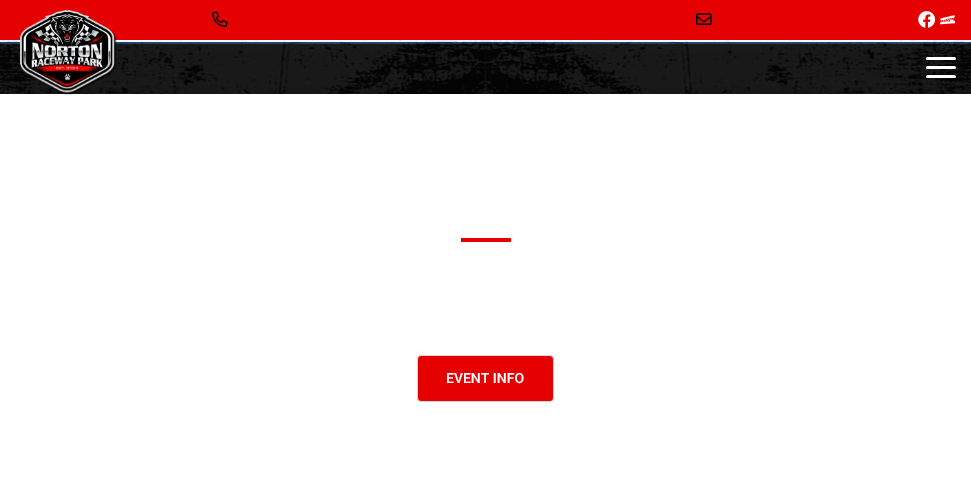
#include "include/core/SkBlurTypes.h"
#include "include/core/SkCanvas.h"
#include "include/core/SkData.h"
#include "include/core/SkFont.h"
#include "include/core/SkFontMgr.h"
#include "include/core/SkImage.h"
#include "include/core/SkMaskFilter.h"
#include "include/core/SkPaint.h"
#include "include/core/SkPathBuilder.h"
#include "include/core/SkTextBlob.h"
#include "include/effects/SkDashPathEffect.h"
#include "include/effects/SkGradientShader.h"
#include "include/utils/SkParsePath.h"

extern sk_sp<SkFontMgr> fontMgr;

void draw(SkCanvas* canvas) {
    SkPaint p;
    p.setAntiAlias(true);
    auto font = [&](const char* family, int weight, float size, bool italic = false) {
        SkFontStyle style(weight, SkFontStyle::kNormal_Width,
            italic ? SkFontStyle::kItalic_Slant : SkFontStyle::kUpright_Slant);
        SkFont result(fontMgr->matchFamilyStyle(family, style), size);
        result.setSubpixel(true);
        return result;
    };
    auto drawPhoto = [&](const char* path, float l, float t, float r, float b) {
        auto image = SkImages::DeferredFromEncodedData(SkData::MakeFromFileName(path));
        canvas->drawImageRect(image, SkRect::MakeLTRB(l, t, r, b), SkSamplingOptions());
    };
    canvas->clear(0xFFFFFFFF);
    p.setColor(0xFFE50001);
    canvas->drawRect(SkRect::MakeLTRB(0, 0, 971, 40), p);
    drawPhoto("media/1.png", 212, 11, 228, 27);
    drawPhoto("media/2.png", 696, 13, 712, 25);
    drawPhoto("media/3.png", 918, 11, 936, 28);
    drawPhoto("media/4.png", 940, 15, 956, 25);
    drawPhoto("media/5.png", 0, 40, 971, 94);
    drawPhoto("media/6.png", 20, 10, 117, 95);
    p.setColor(0xFFFFFFFF);
    canvas->drawRoundRect(SkRect::MakeLTRB(926, 57, 956, 60), 1.5f, 1.5f, p);
    canvas->drawRoundRect(SkRect::MakeLTRB(926, 66, 956, 69), 1.5f, 1.5f, p);
    canvas->drawRoundRect(SkRect::MakeLTRB(926, 75, 956, 78), 1.5f, 1.5f, p);
    p.setColor(0xFFE50001);
    canvas->drawRect(SkRect::MakeLTRB(461, 238, 511, 242), p);
    canvas->drawRoundRect(SkRect::MakeLTRB(417.5f, 355.5f, 553.5f, 401.5f), 3.5f, 3.5f, p);
    p.setStyle(SkPaint::kStroke_Style);
    p.setStrokeWidth(1);
    p.setColor(0xFFD7D7D7);
    canvas->drawRoundRect(SkRect::MakeLTRB(417.5f, 355.5f, 553.5f, 401.5f), 3.5f, 3.5f, p);
    auto font1 = font("Roboto", 500, 14);
    p.setStyle(SkPaint::kFill_Style);
    p.setColor(0xFFFFFFFF);
    canvas->drawString("EVENT INFO", 446, 383, font1, p);
}
